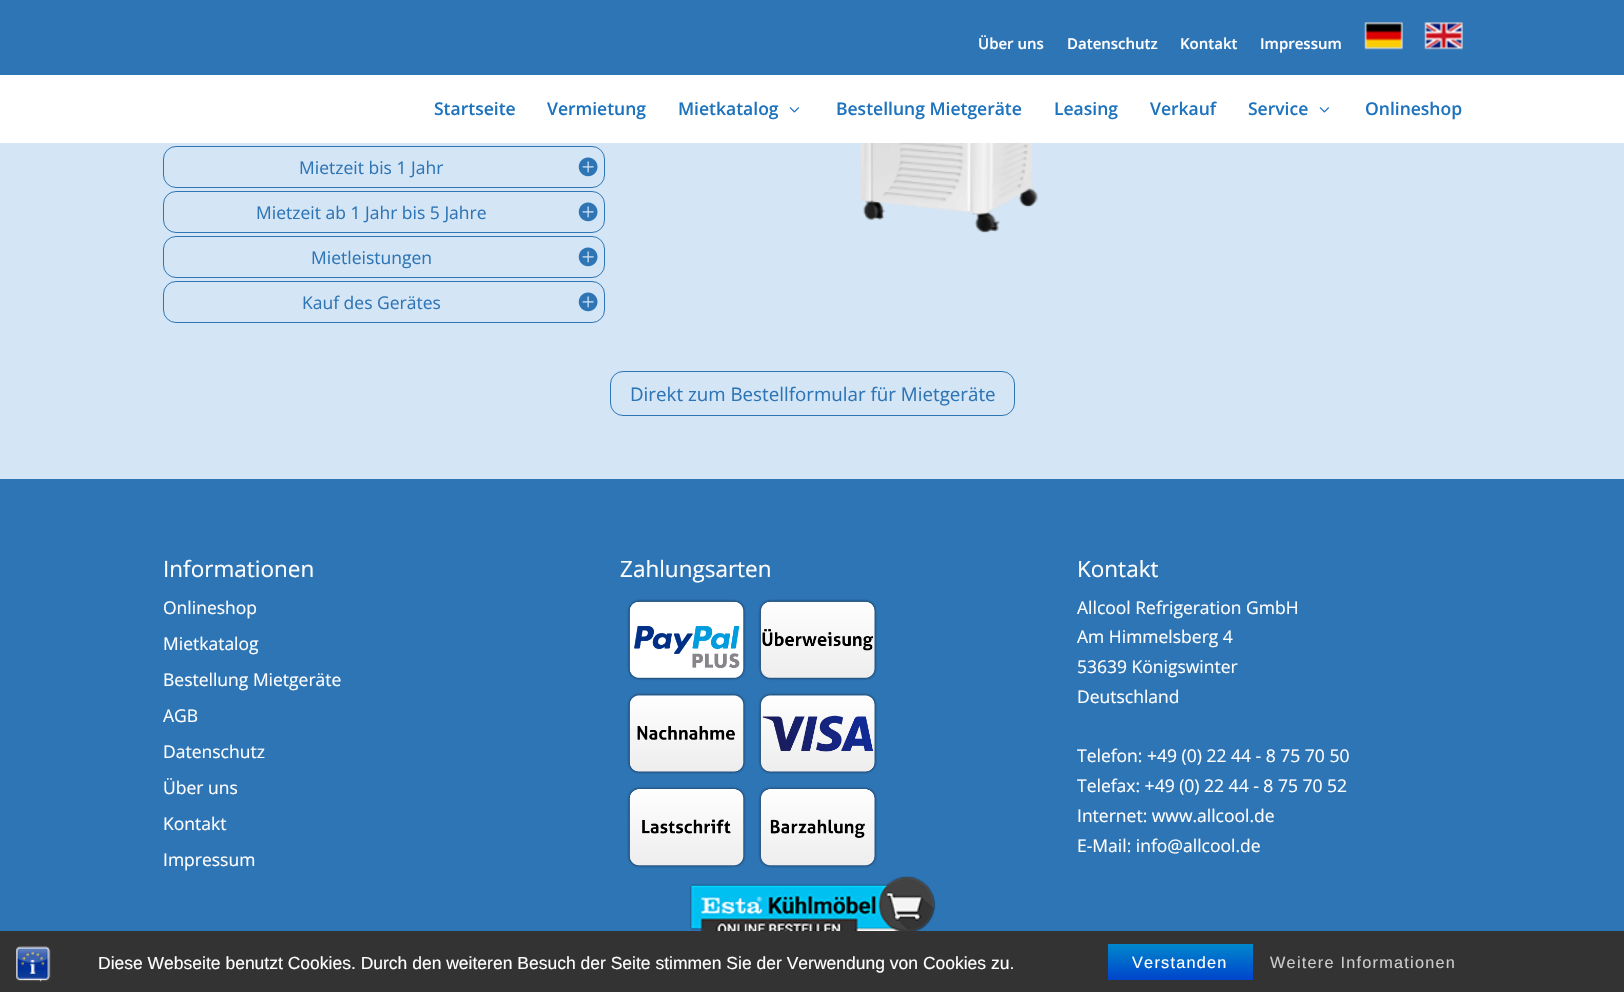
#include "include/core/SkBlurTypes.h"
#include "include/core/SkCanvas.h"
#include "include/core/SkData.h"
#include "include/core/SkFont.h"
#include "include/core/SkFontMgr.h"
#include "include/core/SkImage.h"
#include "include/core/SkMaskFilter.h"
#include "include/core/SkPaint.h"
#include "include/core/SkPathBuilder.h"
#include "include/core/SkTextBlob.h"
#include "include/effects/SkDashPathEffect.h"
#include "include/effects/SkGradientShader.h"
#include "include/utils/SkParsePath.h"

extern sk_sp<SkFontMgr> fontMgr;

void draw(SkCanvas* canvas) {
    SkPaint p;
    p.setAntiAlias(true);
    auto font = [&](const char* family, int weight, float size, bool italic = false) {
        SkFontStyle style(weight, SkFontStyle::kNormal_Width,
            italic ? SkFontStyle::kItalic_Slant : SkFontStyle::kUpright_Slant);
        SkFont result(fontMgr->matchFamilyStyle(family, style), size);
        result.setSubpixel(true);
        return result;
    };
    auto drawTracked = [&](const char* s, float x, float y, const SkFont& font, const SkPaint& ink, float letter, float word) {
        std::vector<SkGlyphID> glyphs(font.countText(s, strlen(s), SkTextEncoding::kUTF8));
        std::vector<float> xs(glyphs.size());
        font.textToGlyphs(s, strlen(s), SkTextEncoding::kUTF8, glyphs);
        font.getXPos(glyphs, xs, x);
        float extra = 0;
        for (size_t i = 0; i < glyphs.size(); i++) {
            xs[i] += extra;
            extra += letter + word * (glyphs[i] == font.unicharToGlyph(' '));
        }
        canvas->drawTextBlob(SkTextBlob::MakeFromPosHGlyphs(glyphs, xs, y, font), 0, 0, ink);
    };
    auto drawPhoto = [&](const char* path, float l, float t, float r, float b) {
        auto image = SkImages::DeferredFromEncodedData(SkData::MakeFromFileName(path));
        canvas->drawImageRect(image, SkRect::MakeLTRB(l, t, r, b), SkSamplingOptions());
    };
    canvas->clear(0xFF2E75B6);
    auto font1 = font("Open Sans", 600, 15);
    p.setColor(0xFFFFFFFF);
    {
        const struct { const char* s; float x, y; } items[] = {
            {"Über uns", 978, 49},
            {"Datenschutz", 1067, 49},
            {"Kontakt", 1180, 49},
            {"Impressum", 1260, 49},
        };
        for (auto [s, x, y] : items) {
            canvas->drawString(s, x, y, font1, p);
        }
    }
    drawPhoto("media/1.png", 1364, 22, 1403, 50);
    drawPhoto("media/2.png", 1424, 22, 1463, 50);
    canvas->drawRect(SkRect::MakeLTRB(0, 75, 1624, 143), p);
    auto font2 = font("Open Sans", 600, 17.5f);
    p.setColor(0xFF1E73BE);
    {
        const struct { const char* s; float x, y; } items[] = {
            {"Startseite", 434, 115},
            {"Vermietung", 547, 115},
            {"Mietkatalog", 678, 115},
        };
        for (auto [s, x, y] : items) {
            canvas->drawString(s, x, y, font2, p);
        }
    }
    drawPhoto("media/3.png", 789, 107, 799, 113);
    {
        const struct { const char* s; float x, y; } items[] = {
            {"Bestellung Mietgeräte", 836, 115},
            {"Leasing", 1054, 115},
            {"Verkauf", 1150, 115},
            {"Service", 1248, 115},
        };
        for (auto [s, x, y] : items) {
            canvas->drawString(s, x, y, font2, p);
        }
    }
    drawPhoto("media/3.png", 1319, 107, 1329, 113);
    canvas->drawString("Onlineshop", 1365, 115, font2, p);
    p.setColor(0xFFD4E5F5);
    canvas->drawRect(SkRect::MakeLTRB(0, 143, 1624, 479), p);
    p.setStyle(SkPaint::kStroke_Style);
    p.setStrokeWidth(1);
    p.setColor(0xFF2E75B6);
    canvas->drawRoundRect(SkRect::MakeLTRB(163.5f, 146.5f, 604.5f, 187.5f), 12.5f, 12.5f, p);
    auto font3 = font("Open Sans", 400, 17.5f);
    p.setStyle(SkPaint::kFill_Style);
    canvas->drawString("Mietzeit bis 1 Jahr", 299, 174, font3, p);
    drawPhoto("media/4.png", 578, 157, 598, 177);
    p.setStyle(SkPaint::kStroke_Style);
    canvas->drawRoundRect(SkRect::MakeLTRB(163.5f, 191.5f, 604.5f, 232.5f), 12.5f, 12.5f, p);
    p.setStyle(SkPaint::kFill_Style);
    canvas->drawString("Mietzeit ab 1 Jahr bis 5 Jahre", 256, 219, font3, p);
    drawPhoto("media/4.png", 578, 202, 598, 222);
    p.setStyle(SkPaint::kStroke_Style);
    canvas->drawRoundRect(SkRect::MakeLTRB(163.5f, 236.5f, 604.5f, 277.5f), 12.5f, 12.5f, p);
    p.setStyle(SkPaint::kFill_Style);
    canvas->drawString("Mietleistungen", 311, 264, font3, p);
    drawPhoto("media/4.png", 578, 247, 598, 267);
    p.setStyle(SkPaint::kStroke_Style);
    canvas->drawRoundRect(SkRect::MakeLTRB(163.5f, 281.5f, 604.5f, 322.5f), 12.5f, 12.5f, p);
    p.setStyle(SkPaint::kFill_Style);
    canvas->drawString("Kauf des Gerätes", 302, 309, font3, p);
    drawPhoto("media/4.png", 578, 292, 598, 312);
    drawPhoto("media/5.png", 860, 143, 1038, 233);
    p.setStyle(SkPaint::kStroke_Style);
    canvas->drawRoundRect(SkRect::MakeLTRB(610.5f, 371.5f, 1014.5f, 415.5f), 12.5f, 12.5f, p);
    auto font4 = font("Open Sans", 400, 18.75f);
    p.setStyle(SkPaint::kFill_Style);
    canvas->drawString("Direkt zum Bestellformular für Mietgeräte", 630, 401, font4, p);
    auto font5 = font("Open Sans", 400, 22.5f);
    p.setColor(0xFFFFFFFF);
    canvas->drawString("Informationen", 163, 577, font5, p);
    {
        const struct { const char* s; float x, y; } items[] = {
            {"Onlineshop", 163, 614},
            {"Mietkatalog", 163, 650},
            {"Bestellung Mietgeräte", 163, 686},
            {"AGB", 163, 722},
            {"Datenschutz", 163, 758},
            {"Über uns", 163, 794},
            {"Kontakt", 163, 830},
            {"Impressum", 163, 866},
        };
        for (auto [s, x, y] : items) {
            canvas->drawString(s, x, y, font3, p);
        }
    }
    canvas->drawString("Zahlungsarten", 620, 577, font5, p);
    drawPhoto("media/6.png", 627, 599, 746, 681);
    drawPhoto("media/7.png", 758, 599, 877, 681);
    drawPhoto("media/8.png", 627, 693, 746, 774);
    drawPhoto("media/9.png", 758, 693, 877, 774);
    drawPhoto("media/10.png", 627, 786, 746, 868);
    drawPhoto("media/11.png", 758, 786, 877, 868);
    drawPhoto("media/12.png", 690, 875, 936, 931);
    canvas->drawString("Kontakt", 1077, 577, font5, p);
    {
        const struct { const char* s; float x, y; } items[] = {
            {"Allcool Refrigeration GmbH", 1077, 614},
            {"Am Himmelsberg 4", 1077, 643},
            {"53639 Königswinter", 1077, 673},
            {"Deutschland", 1077, 703},
            {"Telefon: +49 (0) 22 44 - 8 75 70 50", 1077, 762},
            {"Telefax: +49 (0) 22 44 - 8 75 70 52", 1077, 792},
            {"Internet: www.allcool.de", 1077, 822},
            {"E-Mail: info@allcool.de", 1077, 852},
        };
        for (auto [s, x, y] : items) {
            canvas->drawString(s, x, y, font3, p);
        }
    }
    p.setColor(0xFF333333);
    canvas->drawRect(SkRect::MakeLTRB(0, 931, 1624, 992), p);
    drawPhoto("media/13.png", 16, 946, 51, 982);
    auto font6 = font("Liberation Sans", 400, 17.5f);
    p.setColor(0xFFFFFFFF);
    canvas->drawString("Diese Webseite benutzt Cookies. Durch den weiteren Besuch der Seite stimmen Sie der Verwendung von Cookies zu.", 98, 969, font6, p);
    {
        const SkColor colors[] = {0xFF0088CC, 0xFF0044CC};
        const float stops[] = {0, 1};
        const SkPoint ends[] = {{1180, 944}, {1180, 980}};
        p.setShader(SkGradientShader::MakeLinear(ends, colors, stops, 2, SkTileMode::kClamp));
        p.setAlpha(255);
    }
    canvas->drawRect(SkRect::MakeLTRB(1108, 944, 1253, 980), p);
    auto font7 = font("Liberation Sans", 400, 16.25f);
    p.setShader(nullptr);
    p.setColor(0xFFFFFFFF);
    drawTracked("Verstanden", 1132, 968, font7, p, 1.25f, 0);
    p.setColor(0xFFCCCCCC);
    drawTracked("Weitere Informationen", 1270, 968, font7, p, 1.25f, 0);
}
